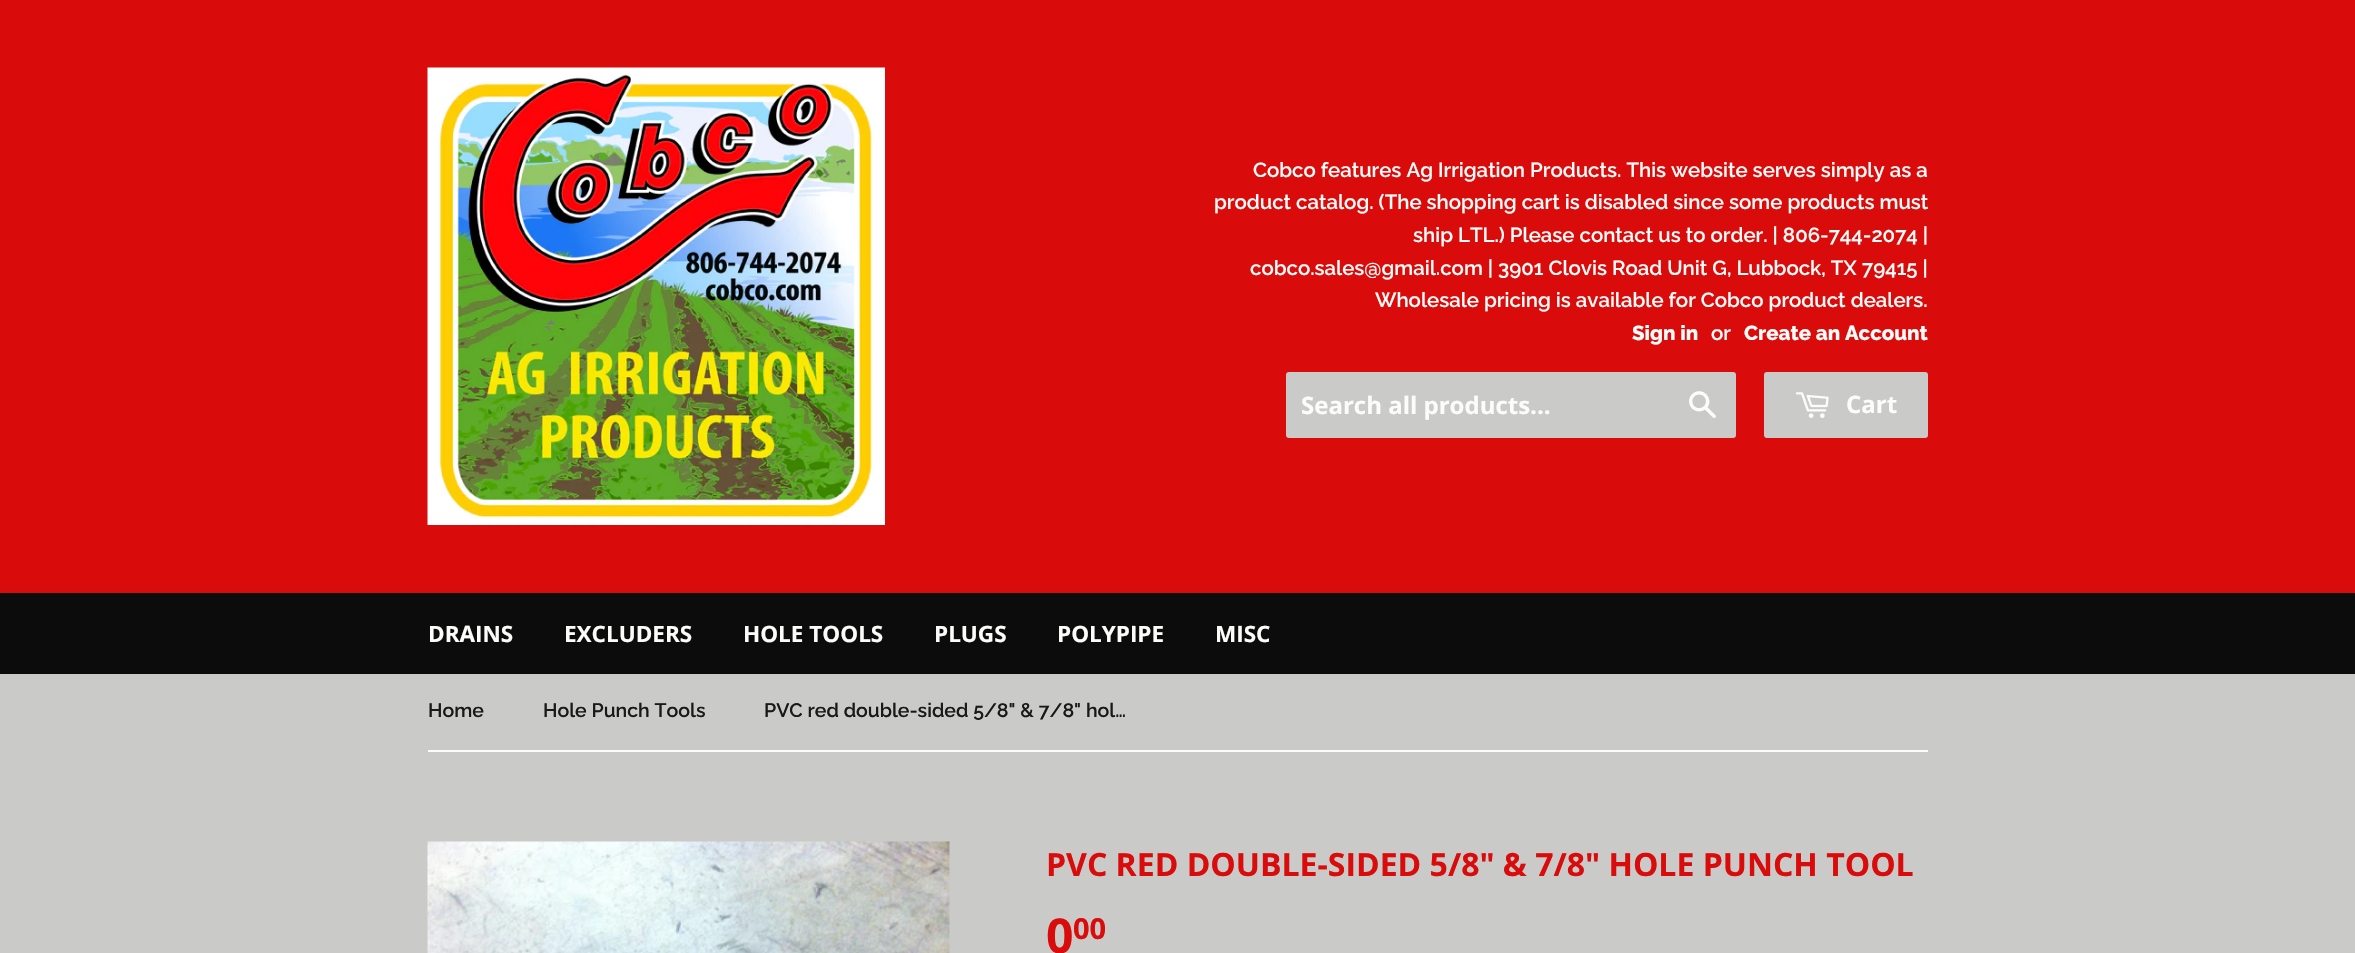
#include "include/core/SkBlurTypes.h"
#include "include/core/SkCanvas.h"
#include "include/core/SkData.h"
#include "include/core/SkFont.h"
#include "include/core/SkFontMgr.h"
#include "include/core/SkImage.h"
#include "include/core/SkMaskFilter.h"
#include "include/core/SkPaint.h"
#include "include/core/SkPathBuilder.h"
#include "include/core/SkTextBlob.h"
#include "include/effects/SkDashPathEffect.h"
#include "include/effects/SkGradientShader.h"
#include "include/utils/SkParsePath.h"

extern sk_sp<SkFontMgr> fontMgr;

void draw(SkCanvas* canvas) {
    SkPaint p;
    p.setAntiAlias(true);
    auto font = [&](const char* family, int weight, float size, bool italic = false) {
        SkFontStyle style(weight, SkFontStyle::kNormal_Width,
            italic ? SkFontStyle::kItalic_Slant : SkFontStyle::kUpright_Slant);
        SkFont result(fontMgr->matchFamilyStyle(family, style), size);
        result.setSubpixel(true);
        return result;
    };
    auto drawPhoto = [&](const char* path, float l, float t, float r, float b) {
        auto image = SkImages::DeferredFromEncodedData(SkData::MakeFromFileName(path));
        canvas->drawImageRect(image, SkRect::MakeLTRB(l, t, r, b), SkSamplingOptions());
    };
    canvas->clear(0xFFCACAC9);
    p.setColor(0xFFD90B0B);
    canvas->drawRect(SkRect::MakeLTRB(0, 0, 2355, 593), p);
    drawPhoto("media/1.png", 427, 67, 885, 525);
    auto font1 = font("Raleway", 600, 20.4f);
    p.setColor(0xFFFCFCFA);
    {
        const struct { const char* s; float x, y; } items[] = {
            {"Cobco features Ag Irrigation Products. This website serves simply as a", 1253, 177},
            {"product catalog. (The shopping cart is disabled since some products must", 1214, 209},
            {"ship LTL.) Please contact us to order. | 806-744-2074 |", 1413, 242},
            {"cobco.sales@gmail.com | 3901 Clovis Road Unit G, Lubbock, TX", 1250, 275},
            {"79415 |", 1862, 275},
            {"Wholesale pricing is available for Cobco product dealers.", 1375, 307},
        };
        for (auto [s, x, y] : items) {
            canvas->drawString(s, x, y, font1, p);
        }
    }
    auto font2 = font("Raleway", 800, 20.4f);
    canvas->drawString("Sign in", 1632, 340, font2, p);
    canvas->drawString("or", 1711, 340, font1, p);
    canvas->drawString("Create an Account", 1744, 340, font2, p);
    p.setColor(0xFFCACAC9);
    canvas->drawRoundRect(SkRect::MakeLTRB(1286, 372, 1736, 438), 3, 3, p);
    auto font3 = font("Open Sans", 700, 24);
    p.setColor(0xFFFCFCFA);
    canvas->drawString("Search all products...", 1301, 414, font3, p);
    drawPhoto("media/2.png", 1689, 391, 1716, 418);
    p.setColor(0xFFCACAC9);
    canvas->drawRoundRect(SkRect::MakeLTRB(1764, 372, 1928, 438), 3, 3, p);
    drawPhoto("media/3.png", 1795, 392, 1829, 418);
    p.setColor(0xFFFCFCFA);
    canvas->drawString("Cart", 1846, 413, font3, p);
    p.setColor(0xFF0C0C0C);
    canvas->drawRect(SkRect::MakeLTRB(0, 593, 2355, 674), p);
    auto font4 = font("Open Sans", 700, 22.5f);
    p.setColor(0xFFFCFCFA);
    {
        const struct { const char* s; float x, y; } items[] = {
            {"DRAINS", 428, 642},
            {"EXCLUDERS", 564, 642},
            {"HOLE TOOLS", 743, 642},
            {"PLUGS", 934, 642},
            {"POLYPIPE", 1057, 642},
            {"MISC", 1215, 642},
        };
        for (auto [s, x, y] : items) {
            canvas->drawString(s, x, y, font4, p);
        }
    }
    canvas->drawRect(SkRect::MakeLTRB(428, 750, 1928, 752), p);
    auto font5 = font("Raleway", 600, 19.5f);
    p.setColor(0xFF1A1919);
    {
        const struct { const char* s; float x, y; } items[] = {
            {"Home", 428, 717},
            {"Hole Punch Tools", 543, 717},
            {"PVC red double-sided 5/8\" & 7/8\" hol…", 764, 717},
        };
        for (auto [s, x, y] : items) {
            canvas->drawString(s, x, y, font5, p);
        }
    }
    drawPhoto("media/4.png", 427, 841, 950, 953);
    auto font6 = font("Open Sans", 700, 32);
    p.setColor(0xFFD90B0B);
    canvas->drawString("PVC RED DOUBLE-SIDED 5/8\" & 7/8\" HOLE PUNCH TOOL", 1046, 876, font6, p);
    auto font7 = font("Open Sans", 700, 48);
    canvas->drawString("0", 1046, 953, font7, p);
    auto font8 = font("Open Sans", 700, 29);
    canvas->drawString("00", 1073, 939, font8, p);
}
